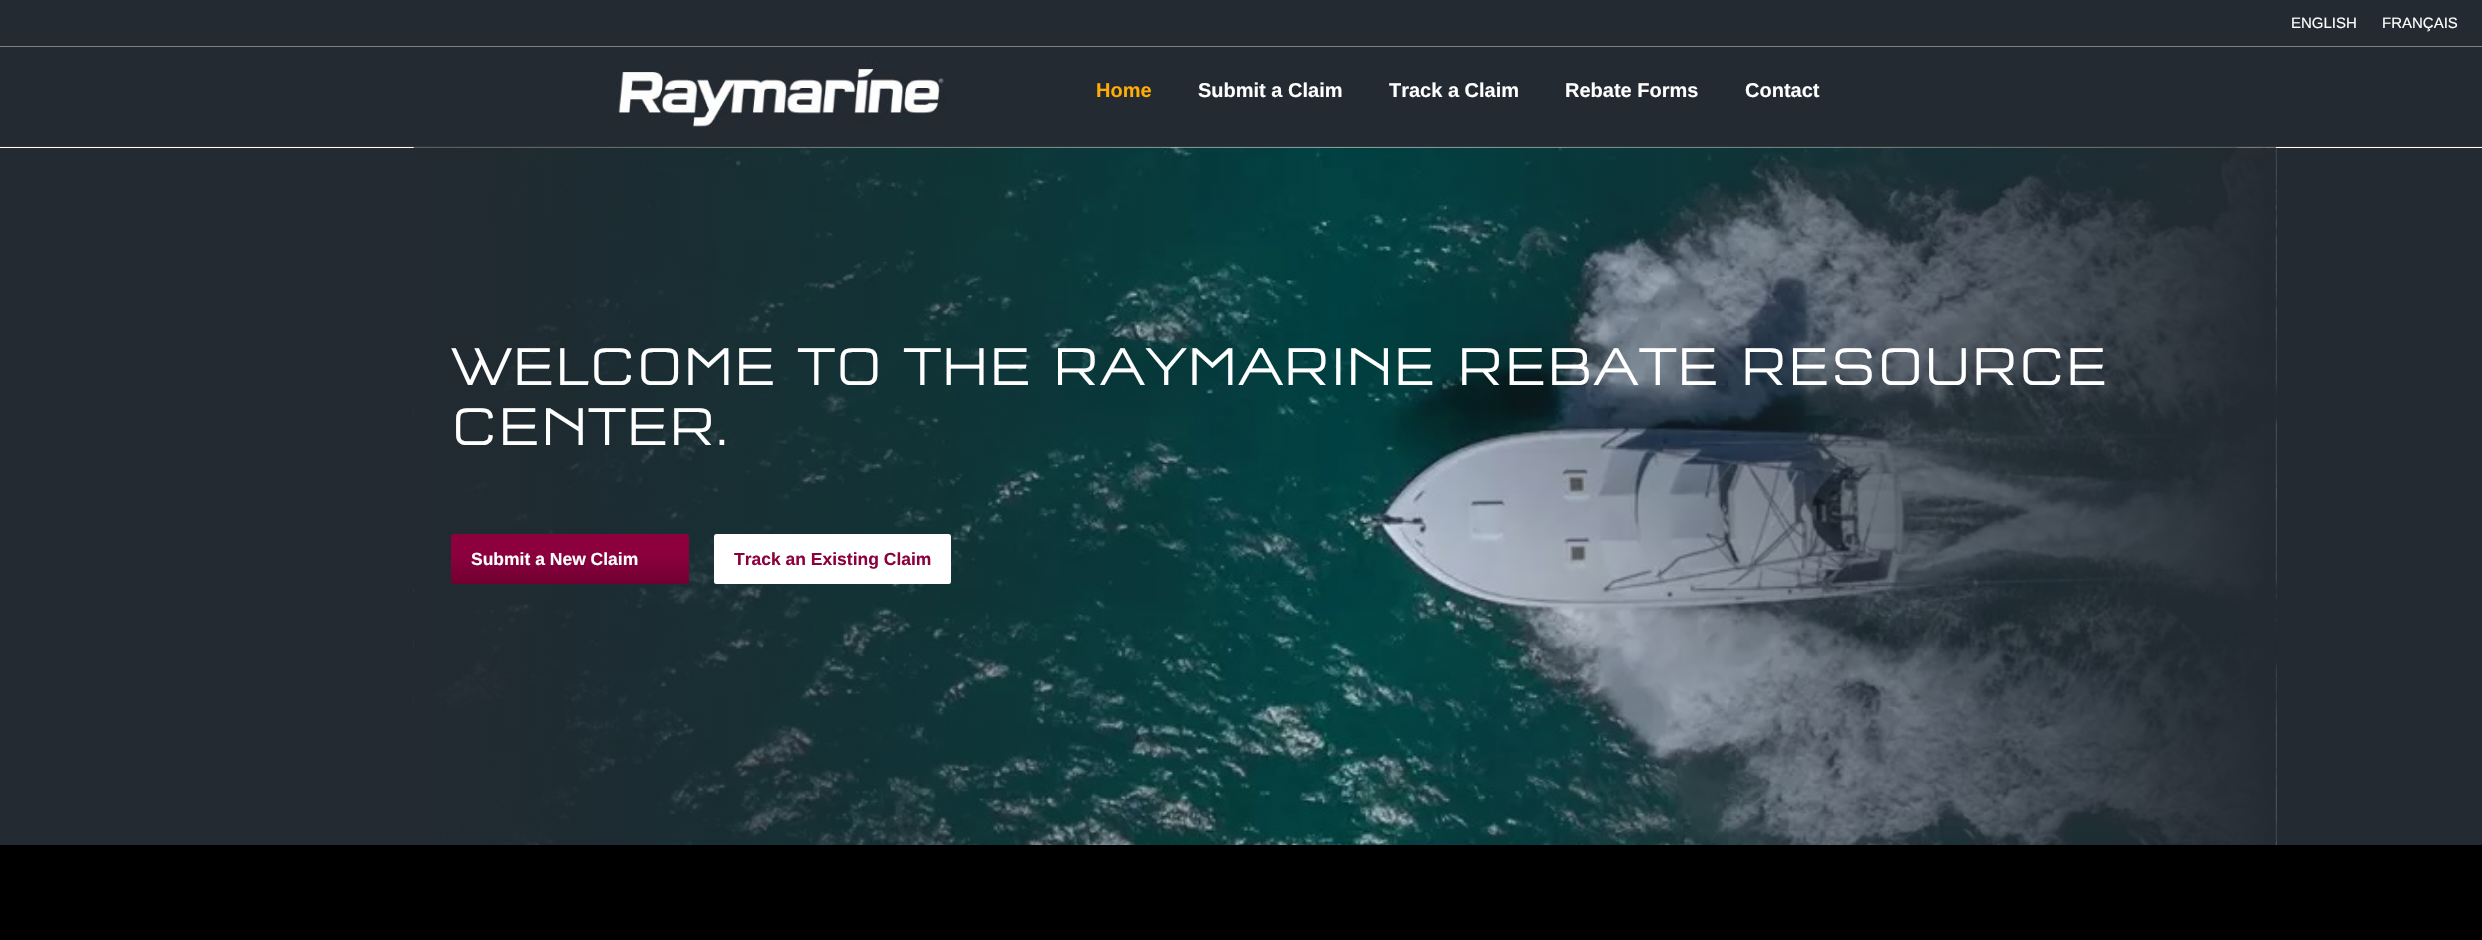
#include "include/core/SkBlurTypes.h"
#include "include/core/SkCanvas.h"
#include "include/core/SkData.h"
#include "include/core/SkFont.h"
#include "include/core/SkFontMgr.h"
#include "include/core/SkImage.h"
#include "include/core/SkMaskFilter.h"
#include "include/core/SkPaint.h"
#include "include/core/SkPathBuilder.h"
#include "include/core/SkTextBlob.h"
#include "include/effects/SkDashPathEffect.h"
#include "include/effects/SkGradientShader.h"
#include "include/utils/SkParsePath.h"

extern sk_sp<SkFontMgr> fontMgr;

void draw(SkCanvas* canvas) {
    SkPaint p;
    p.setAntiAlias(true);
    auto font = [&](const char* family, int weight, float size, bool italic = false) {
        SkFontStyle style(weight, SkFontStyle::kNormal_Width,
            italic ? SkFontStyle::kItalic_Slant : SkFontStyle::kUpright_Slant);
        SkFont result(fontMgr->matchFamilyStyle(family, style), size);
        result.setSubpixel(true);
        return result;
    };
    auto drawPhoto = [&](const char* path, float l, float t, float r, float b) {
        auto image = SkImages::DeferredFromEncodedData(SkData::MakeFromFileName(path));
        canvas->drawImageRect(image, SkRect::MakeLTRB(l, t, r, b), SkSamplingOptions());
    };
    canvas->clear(0xFFFFFFFF);
    p.setColor(0xFF232A31);
    canvas->drawRect(SkRect::MakeLTRB(0, 0, 2482, 146), p);
    p.setColor(0xFF808080);
    canvas->drawRect(SkRect::MakeLTRB(0, 46, 2482, 47), p);
    auto font1 = font("Liberation Sans", 400, 15);
    p.setColor(0xFFFFFFFF);
    canvas->drawString("ENGLISH", 2291, 28, font1, p);
    canvas->drawString("FRANÇAIS", 2382, 28, font1, p);
    p.setColor(0xFF333333);
    canvas->drawRect(SkRect::MakeLTRB(0, 146, 2482, 147), p);
    drawPhoto("media/1.png", 600, 62, 957, 147);
    auto font2 = font("Liberation Sans", 700, 20);
    p.setColor(0xFFFFAC07);
    canvas->drawString("Home", 1096, 97, font2, p);
    p.setColor(0xFFFFFFFF);
    {
        const struct { const char* s; float x, y; } items[] = {
            {"Submit a Claim", 1198, 97},
            {"Track a Claim", 1389, 97},
            {"Rebate Forms", 1565, 97},
            {"Contact", 1745, 97},
        };
        for (auto [s, x, y] : items) {
            canvas->drawString(s, x, y, font2, p);
        }
    }
    p.setColor(0xFF232A31);
    canvas->drawRect(SkRect::MakeLTRB(0, 148, 2482, 845), p);
    drawPhoto("media/2.png", 413, 147, 2277, 845);
    auto font3 = font("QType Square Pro", 300, 55);
    p.setColor(0xFFFFFFFF);
    canvas->drawString("WELCOME TO THE RAYMARINE REBATE RESOURCE", 451, 385, font3, p);
    canvas->drawString("CENTER.", 451, 445, font3, p);
    {
        const SkColor colors[] = {0xFF8D003E, 0xFF710032, 0xFF8D003E};
        const float stops[] = {0.38f, 1, 1};
        const SkPoint ends[] = {{570, 534}, {570, 584}};
        p.setShader(SkGradientShader::MakeLinear(ends, colors, stops, 3, SkTileMode::kClamp));
        p.setAlpha(255);
    }
    canvas->drawRoundRect(SkRect::MakeLTRB(451, 534, 689, 584), 2.5f, 2.5f, p);
    auto font4 = font("Liberation Sans", 700, 17.5f);
    p.setShader(nullptr);
    p.setColor(0xFFFFFFFF);
    canvas->drawString("Submit a New Claim", 471, 565, font4, p);
    canvas->drawRoundRect(SkRect::MakeLTRB(714, 534, 951, 584), 2.5f, 2.5f, p);
    p.setColor(0xFF8D003E);
    canvas->drawString("Track an Existing Claim", 734, 565, font4, p);
    p.setColor(0xFF000000);
    canvas->drawRect(SkRect::MakeLTRB(0, 845, 2482, 940), p);
}
